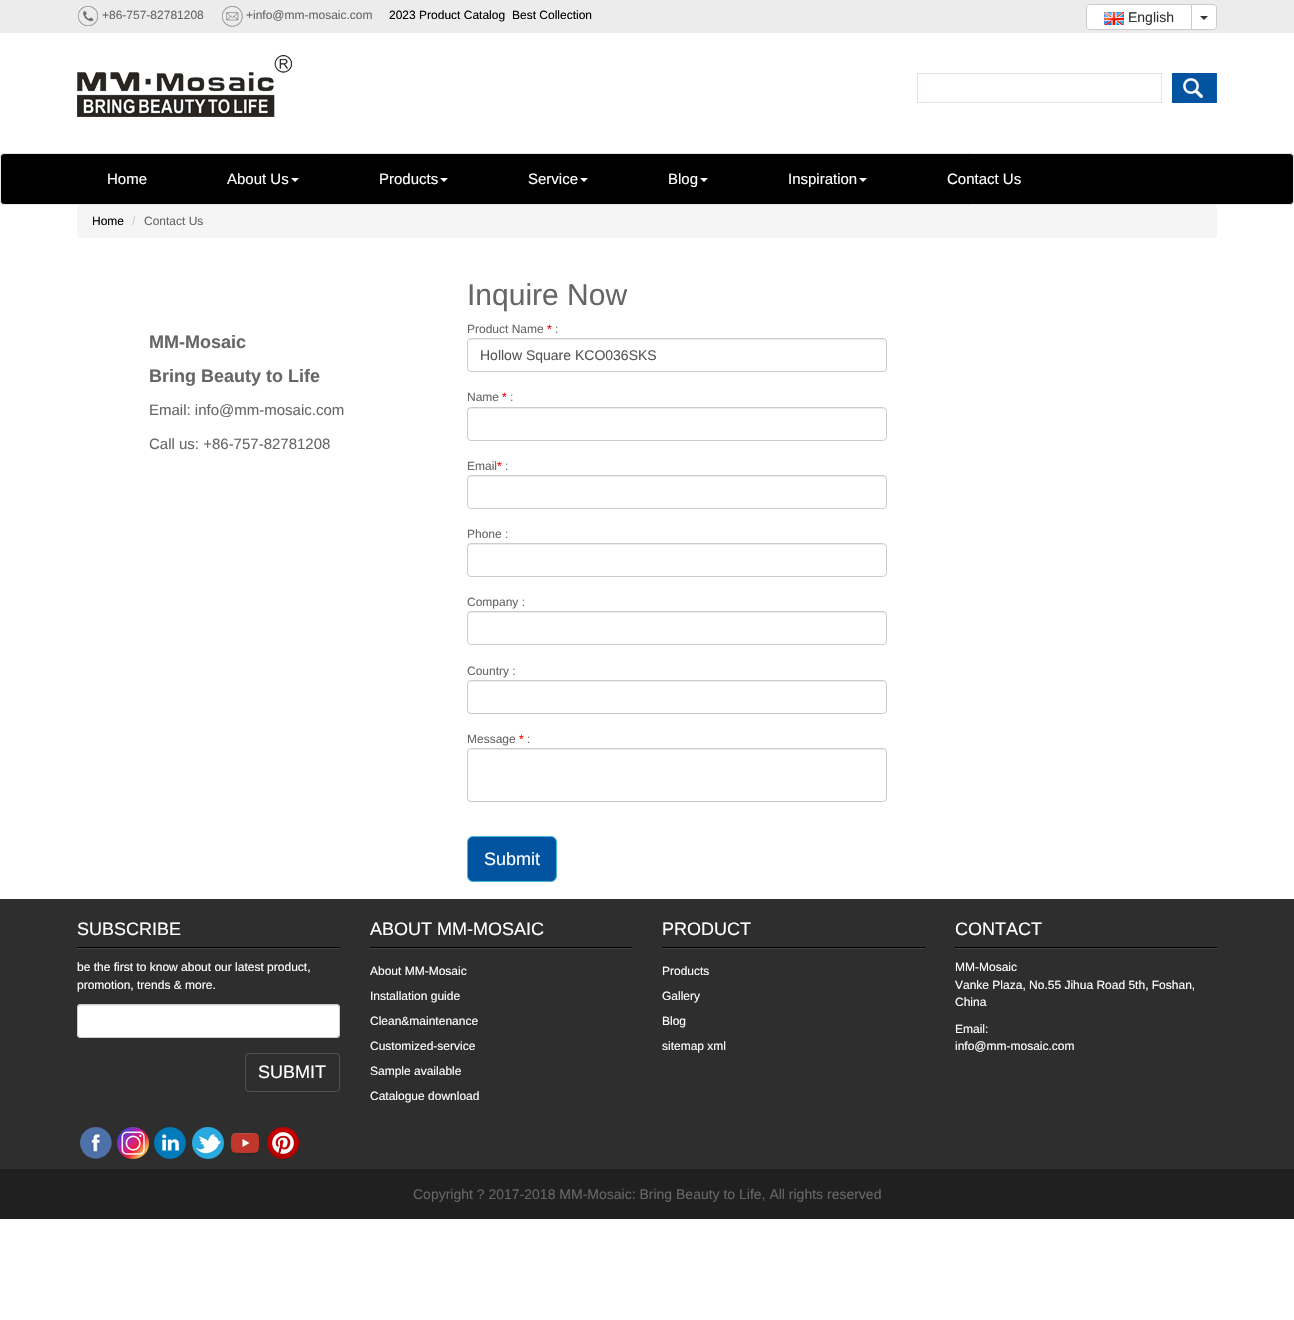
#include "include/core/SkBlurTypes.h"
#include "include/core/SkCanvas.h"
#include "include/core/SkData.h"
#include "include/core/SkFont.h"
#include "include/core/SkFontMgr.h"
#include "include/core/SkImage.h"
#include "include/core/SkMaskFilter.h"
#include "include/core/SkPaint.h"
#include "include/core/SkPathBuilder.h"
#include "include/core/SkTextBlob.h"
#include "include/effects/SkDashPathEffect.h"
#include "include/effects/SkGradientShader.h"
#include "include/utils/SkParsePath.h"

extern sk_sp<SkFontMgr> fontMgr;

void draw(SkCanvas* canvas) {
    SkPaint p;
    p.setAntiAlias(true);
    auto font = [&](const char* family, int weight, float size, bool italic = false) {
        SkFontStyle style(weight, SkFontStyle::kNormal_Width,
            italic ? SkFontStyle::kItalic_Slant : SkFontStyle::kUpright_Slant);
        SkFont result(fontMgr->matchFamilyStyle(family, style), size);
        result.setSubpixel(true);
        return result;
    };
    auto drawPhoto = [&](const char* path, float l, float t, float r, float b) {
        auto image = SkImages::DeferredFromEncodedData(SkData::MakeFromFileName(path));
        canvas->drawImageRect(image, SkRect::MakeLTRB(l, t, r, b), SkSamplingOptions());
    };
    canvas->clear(0xFFFFFFFF);
    p.setColor(0xFFECECEC);
    canvas->drawRect(SkRect::MakeLTRB(0, 0, 1294, 33), p);
    drawPhoto("media/1.png", 77, 5, 99, 27);
    auto font1 = font("Liberation Sans", 400, 12);
    p.setColor(0xFF666666);
    canvas->drawString("+86-757-82781208", 102, 19, font1, p);
    drawPhoto("media/2.png", 221, 5, 243, 27);
    canvas->drawString("+info@mm-mosaic.com", 246, 19, font1, p);
    p.setColor(0xFF000000);
    canvas->drawString("2023 Product Catalog", 389, 19, font1, p);
    canvas->drawString("Best Collection", 512, 19, font1, p);
    p.setColor(0xFFFFFFFF);
    canvas->drawPath(SkPathBuilder().moveTo(1090, 4.5f).lineTo(1191.5f, 4.5f).lineTo(1191.5f, 29.5f).lineTo(1090, 29.5f).cubicTo(1088, 29.5f, 1086.5f, 28, 1086.5f, 26).lineTo(1086.5f, 8).cubicTo(1086.5f, 6, 1088, 4.5f, 1090, 4.5f).close().detach(), p);
    p.setStyle(SkPaint::kStroke_Style);
    p.setStrokeWidth(1);
    p.setColor(0xFFCCCCCC);
    canvas->drawPath(SkPathBuilder().moveTo(1090, 4.5f).lineTo(1191.5f, 4.5f).lineTo(1191.5f, 29.5f).lineTo(1090, 29.5f).cubicTo(1088, 29.5f, 1086.5f, 28, 1086.5f, 26).lineTo(1086.5f, 8).cubicTo(1086.5f, 6, 1088, 4.5f, 1090, 4.5f).close().detach(), p);
    drawPhoto("media/3.png", 1104, 12, 1124, 25);
    auto font2 = font("Liberation Sans", 400, 14);
    p.setStyle(SkPaint::kFill_Style);
    p.setColor(0xFF333333);
    canvas->drawString("English", 1128, 22, font2, p);
    p.setColor(0xFFFFFFFF);
    canvas->drawPath(SkPathBuilder().moveTo(1191.5f, 4.5f).lineTo(1213, 4.5f).cubicTo(1215, 4.5f, 1216.5f, 6, 1216.5f, 8).lineTo(1216.5f, 26).cubicTo(1216.5f, 28, 1215, 29.5f, 1213, 29.5f).lineTo(1191.5f, 29.5f).close().detach(), p);
    p.setStyle(SkPaint::kStroke_Style);
    p.setColor(0xFFCCCCCC);
    canvas->drawPath(SkPathBuilder().moveTo(1191.5f, 4.5f).lineTo(1213, 4.5f).cubicTo(1215, 4.5f, 1216.5f, 6, 1216.5f, 8).lineTo(1216.5f, 26).cubicTo(1216.5f, 28, 1215, 29.5f, 1213, 29.5f).lineTo(1191.5f, 29.5f).close().detach(), p);
    p.setStyle(SkPaint::kFill_Style);
    p.setColor(0xFF333333);
    canvas->drawPath(SkPathBuilder().moveTo(1200, 16).lineTo(1208, 16).lineTo(1204, 20).close().detach(), p);
    drawPhoto("media/4.png", 77, 55, 292, 117);
    drawPhoto("media/5.png", 917, 73, 1162, 103);
    p.setColor(0xFF0254A0);
    canvas->drawRect(SkRect::MakeLTRB(1172, 73, 1180, 103), p);
    drawPhoto("media/6.png", 1180, 73, 1217, 103);
    p.setColor(0xFF000000);
    canvas->drawRoundRect(SkRect::MakeLTRB(0.5f, 153.5f, 1293.5f, 204.5f), 3.5f, 3.5f, p);
    p.setStyle(SkPaint::kStroke_Style);
    p.setColor(0xFFE7E7E7);
    canvas->drawRoundRect(SkRect::MakeLTRB(0.5f, 153.5f, 1293.5f, 204.5f), 3.5f, 3.5f, p);
    auto font3 = font("Liberation Sans", 400, 15);
    p.setStyle(SkPaint::kFill_Style);
    p.setColor(0xFFFFFFFF);
    canvas->drawString("Home", 107, 184, font3, p);
    canvas->drawString("About Us", 227, 184, font3, p);
    canvas->drawPath(SkPathBuilder().moveTo(291, 178).lineTo(299, 178).lineTo(295, 182).close().detach(), p);
    canvas->drawString("Products", 379, 184, font3, p);
    canvas->drawPath(SkPathBuilder().moveTo(440, 178).lineTo(448, 178).lineTo(444, 182).close().detach(), p);
    canvas->drawString("Service", 528, 184, font3, p);
    canvas->drawPath(SkPathBuilder().moveTo(580, 178).lineTo(588, 178).lineTo(584, 182).close().detach(), p);
    canvas->drawString("Blog", 668, 184, font3, p);
    canvas->drawPath(SkPathBuilder().moveTo(700, 178).lineTo(708, 178).lineTo(704, 182).close().detach(), p);
    canvas->drawString("Inspiration", 788, 184, font3, p);
    canvas->drawPath(SkPathBuilder().moveTo(859, 178).lineTo(867, 178).lineTo(863, 182).close().detach(), p);
    canvas->drawString("Contact Us", 947, 184, font3, p);
    p.setColor(0xFFF5F5F5);
    canvas->drawRoundRect(SkRect::MakeLTRB(77, 205, 1217, 238), 4, 4, p);
    p.setColor(0xFF000000);
    canvas->drawString("Home", 92, 225, font1, p);
    p.setColor(0xFFCCCCCC);
    canvas->drawString("/", 132, 225, font1, p);
    p.setColor(0xFF666666);
    canvas->drawString("Contact Us", 144, 225, font1, p);
    auto font4 = font("Liberation Sans", 700, 18);
    canvas->drawString("MM-Mosaic", 149, 348, font4, p);
    canvas->drawString("Bring Beauty to Life", 149, 382, font4, p);
    canvas->drawString("Email: info@mm-mosaic.com", 149, 415, font3, p);
    canvas->drawString("Call us: +86-757-82781208", 149, 449, font3, p);
    auto font5 = font("Liberation Sans", 400, 30);
    canvas->drawString("Inquire Now", 467, 305, font5, p);
    canvas->drawString("Product Name", 467, 333, font1, p);
    p.setColor(0xFFFF0000);
    canvas->drawString("*", 547, 333, font1, p);
    p.setColor(0xFF666666);
    canvas->drawString(":", 555, 333, font1, p);
    p.setColor(0xFFECECEC);
    canvas->drawPath(SkPathBuilder().moveTo(471, 340).lineTo(883, 340).cubicTo(885, 340, 886, 341, 886, 343).cubicTo(886, 341, 885, 339, 883, 339).lineTo(471, 339).cubicTo(469, 339, 468, 341, 468, 343).cubicTo(468, 341, 469, 340, 471, 340).close().detach(), p);
    p.setStyle(SkPaint::kStroke_Style);
    p.setColor(0xFFCCCCCC);
    canvas->drawRoundRect(SkRect::MakeLTRB(467.5f, 338.5f, 886.5f, 371.5f), 3.5f, 3.5f, p);
    p.setStyle(SkPaint::kFill_Style);
    p.setColor(0xFF555555);
    canvas->drawString("Hollow Square KCO036SKS", 480, 360, font2, p);
    p.setColor(0xFF666666);
    canvas->drawString("Name", 467, 401, font1, p);
    p.setColor(0xFFFF0000);
    canvas->drawString("*", 502, 401, font1, p);
    p.setColor(0xFF666666);
    canvas->drawString(":", 510, 401, font1, p);
    p.setColor(0xFFECECEC);
    canvas->drawPath(SkPathBuilder().moveTo(471, 409).lineTo(883, 409).cubicTo(885, 409, 886, 410, 886, 412).cubicTo(886, 410, 885, 408, 883, 408).lineTo(471, 408).cubicTo(469, 408, 468, 410, 468, 412).cubicTo(468, 410, 469, 409, 471, 409).close().detach(), p);
    p.setStyle(SkPaint::kStroke_Style);
    p.setColor(0xFFCCCCCC);
    canvas->drawRoundRect(SkRect::MakeLTRB(467.5f, 407.5f, 886.5f, 440.5f), 3.5f, 3.5f, p);
    p.setStyle(SkPaint::kFill_Style);
    p.setColor(0xFF666666);
    canvas->drawString("Email", 467, 470, font1, p);
    p.setColor(0xFFFF0000);
    canvas->drawString("*", 497, 470, font1, p);
    p.setColor(0xFF666666);
    canvas->drawString(":", 505, 470, font1, p);
    p.setColor(0xFFECECEC);
    canvas->drawPath(SkPathBuilder().moveTo(471, 477).lineTo(883, 477).cubicTo(885, 477, 886, 478, 886, 480).cubicTo(886, 478, 885, 476, 883, 476).lineTo(471, 476).cubicTo(469, 476, 468, 478, 468, 480).cubicTo(468, 478, 469, 477, 471, 477).close().detach(), p);
    p.setStyle(SkPaint::kStroke_Style);
    p.setColor(0xFFCCCCCC);
    canvas->drawRoundRect(SkRect::MakeLTRB(467.5f, 475.5f, 886.5f, 508.5f), 3.5f, 3.5f, p);
    p.setStyle(SkPaint::kFill_Style);
    p.setColor(0xFF666666);
    canvas->drawString("Phone :", 467, 538, font1, p);
    p.setColor(0xFFECECEC);
    canvas->drawPath(SkPathBuilder().moveTo(471, 545).lineTo(883, 545).cubicTo(885, 545, 886, 546, 886, 548).cubicTo(886, 546, 885, 544, 883, 544).lineTo(471, 544).cubicTo(469, 544, 468, 546, 468, 548).cubicTo(468, 546, 469, 545, 471, 545).close().detach(), p);
    p.setStyle(SkPaint::kStroke_Style);
    p.setColor(0xFFCCCCCC);
    canvas->drawRoundRect(SkRect::MakeLTRB(467.5f, 543.5f, 886.5f, 576.5f), 3.5f, 3.5f, p);
    p.setStyle(SkPaint::kFill_Style);
    p.setColor(0xFF666666);
    canvas->drawString("Company :", 467, 606, font1, p);
    p.setColor(0xFFECECEC);
    canvas->drawPath(SkPathBuilder().moveTo(471, 613).lineTo(883, 613).cubicTo(885, 613, 886, 614, 886, 616).cubicTo(886, 614, 885, 612, 883, 612).lineTo(471, 612).cubicTo(469, 612, 468, 614, 468, 616).cubicTo(468, 614, 469, 613, 471, 613).close().detach(), p);
    p.setStyle(SkPaint::kStroke_Style);
    p.setColor(0xFFCCCCCC);
    canvas->drawRoundRect(SkRect::MakeLTRB(467.5f, 611.5f, 886.5f, 644.5f), 3.5f, 3.5f, p);
    p.setStyle(SkPaint::kFill_Style);
    p.setColor(0xFF666666);
    canvas->drawString("Country :", 467, 675, font1, p);
    p.setColor(0xFFECECEC);
    canvas->drawPath(SkPathBuilder().moveTo(471, 682).lineTo(883, 682).cubicTo(885, 682, 886, 683, 886, 685).cubicTo(886, 683, 885, 681, 883, 681).lineTo(471, 681).cubicTo(469, 681, 468, 683, 468, 685).cubicTo(468, 683, 469, 682, 471, 682).close().detach(), p);
    p.setStyle(SkPaint::kStroke_Style);
    p.setColor(0xFFCCCCCC);
    canvas->drawRoundRect(SkRect::MakeLTRB(467.5f, 680.5f, 886.5f, 713.5f), 3.5f, 3.5f, p);
    p.setStyle(SkPaint::kFill_Style);
    p.setColor(0xFF666666);
    canvas->drawString("Message", 467, 743, font1, p);
    p.setColor(0xFFFF0000);
    canvas->drawString("*", 519, 743, font1, p);
    p.setColor(0xFF666666);
    canvas->drawString(":", 527, 743, font1, p);
    p.setColor(0xFFECECEC);
    canvas->drawPath(SkPathBuilder().moveTo(471, 750).lineTo(883, 750).cubicTo(885, 750, 886, 751, 886, 753).cubicTo(886, 751, 885, 749, 883, 749).lineTo(471, 749).cubicTo(469, 749, 468, 751, 468, 753).cubicTo(468, 751, 469, 750, 471, 750).close().detach(), p);
    p.setStyle(SkPaint::kStroke_Style);
    p.setColor(0xFFCCCCCC);
    canvas->drawRoundRect(SkRect::MakeLTRB(467.5f, 748.5f, 886.5f, 801.5f), 3.5f, 3.5f, p);
    p.setStyle(SkPaint::kFill_Style);
    p.setColor(0xFF0254A0);
    canvas->drawRoundRect(SkRect::MakeLTRB(467.5f, 836.5f, 556.5f, 881.5f), 5.5f, 5.5f, p);
    p.setStyle(SkPaint::kStroke_Style);
    p.setColor(0xFF46B8DA);
    canvas->drawRoundRect(SkRect::MakeLTRB(467.5f, 836.5f, 556.5f, 881.5f), 5.5f, 5.5f, p);
    auto font6 = font("Liberation Sans", 400, 18);
    p.setStyle(SkPaint::kFill_Style);
    p.setColor(0xFFFFFFFF);
    canvas->drawString("Submit", 484, 865, font6, p);
    p.setColor(0xFF2E2E2E);
    canvas->drawRect(SkRect::MakeLTRB(0, 899, 1294, 1169), p);
    drawPhoto("media/7.png", 77, 947, 340, 949);
    p.setColor(0xFFFFFFFF);
    canvas->drawString("SUBSCRIBE", 77, 935, font6, p);
    canvas->drawString("be the first to know about our latest product,", 77, 971, font1, p);
    canvas->drawString("promotion, trends & more.", 77, 989, font1, p);
    canvas->drawRoundRect(SkRect::MakeLTRB(77, 1004, 340, 1038), 4, 4, p);
    p.setColor(0xFFECECEC);
    canvas->drawPath(SkPathBuilder().moveTo(81, 1006).lineTo(337, 1006).lineTo(339, 1007).lineTo(339, 1009).lineTo(339, 1008).cubicTo(339, 1006, 338, 1005, 336, 1005).lineTo(81, 1005).cubicTo(79, 1005, 78, 1006, 78, 1008).lineTo(78, 1009).cubicTo(78, 1007, 79, 1006, 81, 1006).close().detach(), p);
    p.setStyle(SkPaint::kStroke_Style);
    p.setColor(0xFFCCCCCC);
    canvas->drawRoundRect(SkRect::MakeLTRB(77.5f, 1004.5f, 339.5f, 1037.5f), 3.5f, 3.5f, p);
    p.setColor(0xFF515151);
    canvas->drawRoundRect(SkRect::MakeLTRB(245.5f, 1053.5f, 339.5f, 1091.5f), 3.5f, 3.5f, p);
    p.setStyle(SkPaint::kFill_Style);
    p.setColor(0xFFFFFFFF);
    canvas->drawString("SUBMIT", 258, 1078, font6, p);
    drawPhoto("media/8.png", 80, 1127, 112, 1159);
    drawPhoto("media/9.png", 117, 1127, 149, 1159);
    drawPhoto("media/10.png", 154, 1127, 186, 1159);
    drawPhoto("media/11.png", 192, 1127, 224, 1159);
    drawPhoto("media/12.png", 231, 1133, 259, 1155);
    drawPhoto("media/13.png", 267, 1127, 299, 1159);
    drawPhoto("media/14.png", 370, 947, 632, 949);
    canvas->drawString("ABOUT MM-MOSAIC", 370, 935, font6, p);
    {
        const struct { const char* s; float x, y; } items[] = {
            {"About MM-Mosaic", 370, 975},
            {"Installation guide", 370, 1000},
            {"Clean&maintenance", 370, 1025},
            {"Customized-service", 370, 1050},
            {"Sample available", 370, 1075},
            {"Catalogue download", 370, 1100},
        };
        for (auto [s, x, y] : items) {
            canvas->drawString(s, x, y, font1, p);
        }
    }
    drawPhoto("media/7.png", 662, 947, 925, 949);
    canvas->drawString("PRODUCT", 662, 935, font6, p);
    {
        const struct { const char* s; float x, y; } items[] = {
            {"Products", 662, 975},
            {"Gallery", 662, 1000},
            {"Blog", 662, 1025},
            {"sitemap xml", 662, 1050},
        };
        for (auto [s, x, y] : items) {
            canvas->drawString(s, x, y, font1, p);
        }
    }
    drawPhoto("media/14.png", 955, 947, 1217, 949);
    canvas->drawString("CONTACT", 955, 935, font6, p);
    {
        const struct { const char* s; float x, y; } items[] = {
            {"MM-Mosaic", 955, 971},
            {"Vanke Plaza, No.55 Jihua Road 5th, Foshan,", 955, 989},
            {"China", 955, 1006},
            {"Email:", 955, 1033},
            {"info@mm-mosaic.com", 955, 1050},
        };
        for (auto [s, x, y] : items) {
            canvas->drawString(s, x, y, font1, p);
        }
    }
    p.setColor(0xFF202020);
    canvas->drawRect(SkRect::MakeLTRB(0, 1169, 1294, 1219), p);
    p.setColor(0xFF666666);
    canvas->drawString("Copyright ? 2017-2018 MM-Mosaic: Bring Beauty to Life, All rights reserved", 413, 1199, font2, p);
}
